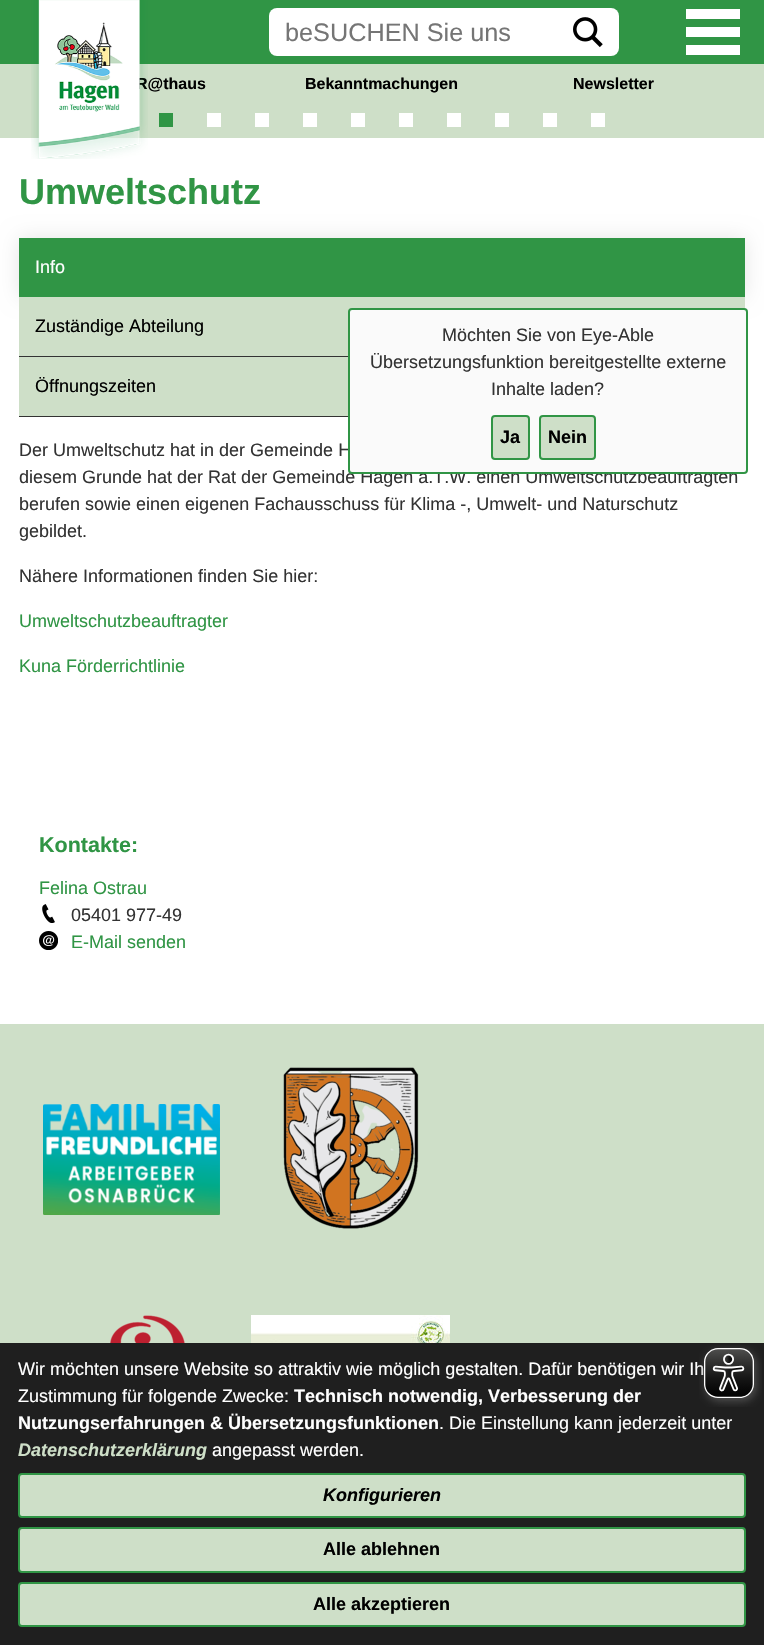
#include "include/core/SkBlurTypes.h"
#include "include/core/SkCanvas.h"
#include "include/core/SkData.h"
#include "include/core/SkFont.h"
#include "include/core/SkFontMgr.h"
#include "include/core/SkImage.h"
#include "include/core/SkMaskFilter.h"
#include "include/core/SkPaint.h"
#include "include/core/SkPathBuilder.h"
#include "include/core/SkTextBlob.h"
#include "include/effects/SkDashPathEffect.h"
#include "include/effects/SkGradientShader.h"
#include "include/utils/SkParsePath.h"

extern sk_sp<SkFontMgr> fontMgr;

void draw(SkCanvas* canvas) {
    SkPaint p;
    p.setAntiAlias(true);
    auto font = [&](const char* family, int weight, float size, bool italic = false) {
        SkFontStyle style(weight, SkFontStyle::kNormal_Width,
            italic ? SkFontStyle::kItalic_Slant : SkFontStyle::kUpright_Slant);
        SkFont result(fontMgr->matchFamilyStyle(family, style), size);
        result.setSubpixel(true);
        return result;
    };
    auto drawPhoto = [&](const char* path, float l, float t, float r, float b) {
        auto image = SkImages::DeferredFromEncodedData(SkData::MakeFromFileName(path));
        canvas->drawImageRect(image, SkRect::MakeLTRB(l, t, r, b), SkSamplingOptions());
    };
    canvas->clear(0xFFFFFFFF);
    {
        const struct { float l, t, r, b; SkColor color; } items[] = {
            {0, 0, 764, 64, 0xFF309545},
            {686, 27, 740, 37, 0xFFFFFFFF},
            {686, 9, 740, 19, 0xFFFFFFFF},
            {686, 45, 740, 55, 0xFFFFFFFF},
            {0, 64, 764, 138, 0xFFCEDFC8},
        };
        for (auto [l, t, r, b, color] : items) {
            p.setColor(color);
            canvas->drawRect(SkRect::MakeLTRB(l, t, r, b), p);
        }
    }
    auto font1 = font("Liberation Sans", 700, 16);
    p.setColor(0xFF000000);
    canvas->drawString("R@thaus", 136, 89, font1, p);
    drawPhoto("media/1.png", 31, 0, 148, 159);
    p.setColor(0xFFFFFFFF);
    canvas->drawRoundRect(SkRect::MakeLTRB(269, 8, 619, 56), 8, 8, p);
    auto font2 = font("Liberation Sans", 400, 25.25f);
    p.setColor(0xFF757575);
    canvas->drawString("beSUCHEN Sie uns", 285, 41, font2, p);
    drawPhoto("media/2.png", 573, 17, 603, 48);
    p.setColor(0xFF000000);
    canvas->drawString("Bekanntmachungen", 305, 89, font1, p);
    canvas->drawString("Newsletter", 573, 89, font1, p);
    {
        const struct { float l, t, r, b; SkColor color; } items[] = {
            {159, 113, 173, 127, 0xFF309545},
            {207, 113, 221, 127, 0xFFFFFFFF},
            {255, 113, 269, 127, 0xFFFFFFFF},
            {303, 113, 317, 127, 0xFFFFFFFF},
            {351, 113, 365, 127, 0xFFFFFFFF},
            {399, 113, 413, 127, 0xFFFFFFFF},
            {447, 113, 461, 127, 0xFFFFFFFF},
            {495, 113, 509, 127, 0xFFFFFFFF},
            {543, 113, 557, 127, 0xFFFFFFFF},
            {591, 113, 605, 127, 0xFFFFFFFF},
        };
        for (auto [l, t, r, b, color] : items) {
            p.setColor(color);
            canvas->drawRect(SkRect::MakeLTRB(l, t, r, b), p);
        }
    }
    auto font3 = font("Liberation Sans", 700, 36);
    p.setColor(0xFF309545);
    canvas->drawString("Umweltschutz", 19, 204, font3, p);
    p.setColor(0x1A000000);
    p.setMaskFilter(SkMaskFilter::MakeBlur(kNormal_SkBlurStyle, 10));
    canvas->drawRect(SkRect::MakeLTRB(19, 238, 745, 297), p);
    p.setMaskFilter(nullptr);
    p.setColor(0xFF309545);
    canvas->drawRect(SkRect::MakeLTRB(19, 238, 745, 297), p);
    auto font4 = font("Liberation Sans", 400, 18);
    p.setColor(0xFFFFFFFF);
    canvas->drawString("Info", 35, 273, font4, p);
    p.setColor(0xFFCEDFC8);
    canvas->drawRect(SkRect::MakeLTRB(19, 297, 745, 356), p);
    p.setColor(0xFF333333);
    canvas->drawRect(SkRect::MakeLTRB(19, 356, 348, 357), p);
    p.setColor(0xFF000000);
    canvas->drawString("Zuständige Abteilung", 35, 332, font4, p);
    p.setColor(0xFFCEDFC8);
    canvas->drawRect(SkRect::MakeLTRB(19, 357, 348, 416), p);
    p.setColor(0xFF333333);
    canvas->drawRect(SkRect::MakeLTRB(19, 416, 348, 417), p);
    p.setColor(0xFF000000);
    canvas->drawString("Öffnungszeiten", 35, 392, font4, p);
    p.setColor(0xFF333333);
    {
        const struct { const char* s; float x, y; } items[] = {
            {"Der Umweltschutz hat in der Gemeinde H", 19, 456},
            {"diesem Grunde hat der Rat der Gemeinde Hagen a.T.W. einen Umweltschutzbeauftragten", 19, 483},
            {"berufen sowie einen eigenen Fachausschuss für Klima -, Umwelt- und Naturschutz", 19, 510},
            {"gebildet.", 19, 537},
            {"Nähere Informationen finden Sie hier:", 19, 582},
        };
        for (auto [s, x, y] : items) {
            canvas->drawString(s, x, y, font4, p);
        }
    }
    p.setColor(0xFF309545);
    canvas->drawString("Umweltschutzbeauftragter", 19, 627, font4, p);
    canvas->drawString("Kuna Förderrichtlinie", 19, 672, font4, p);
    auto font5 = font("Liberation Sans", 700, 21.5f);
    canvas->drawString("Kontakte:", 39, 852, font5, p);
    canvas->drawString("Felina Ostrau", 39, 894, font4, p);
    drawPhoto("media/3.png", 42, 904, 55, 923);
    p.setColor(0xFF333333);
    canvas->drawString("05401 977-49", 71, 921, font4, p);
    drawPhoto("media/4.png", 39, 931, 58, 950);
    p.setColor(0xFF309545);
    canvas->drawString("E-Mail senden", 71, 948, font4, p);
    p.setColor(0xFFCEDFC8);
    canvas->drawRect(SkRect::MakeLTRB(0, 1024, 764, 1343), p);
    drawPhoto("media/5.png", 43, 1104, 220, 1215);
    drawPhoto("media/6.png", 283, 1067, 419, 1229);
    drawPhoto("media/7.png", 110, 1315, 185, 1343);
    drawPhoto("media/8.png", 251, 1315, 450, 1343);
    p.setColor(0xFFFAFAFA);
    canvas->drawRoundRect(SkRect::MakeLTRB(349, 309, 747, 473), 3, 3, p);
    p.setStyle(SkPaint::kStroke_Style);
    p.setStrokeWidth(2);
    p.setColor(0xFF309545);
    canvas->drawRoundRect(SkRect::MakeLTRB(349, 309, 747, 473), 3, 3, p);
    p.setStyle(SkPaint::kFill_Style);
    p.setColor(0xFF333333);
    {
        const struct { const char* s; float x, y; } items[] = {
            {"Möchten Sie von Eye-Able", 442, 341},
            {"Übersetzungsfunktion bereitgestellte externe", 370, 368},
            {"Inhalte laden?", 491, 395},
        };
        for (auto [s, x, y] : items) {
            canvas->drawString(s, x, y, font4, p);
        }
    }
    p.setColor(0xFFCEDFC8);
    canvas->drawRoundRect(SkRect::MakeLTRB(492, 416, 529, 459), 3, 3, p);
    p.setStyle(SkPaint::kStroke_Style);
    p.setColor(0xFF309545);
    canvas->drawRoundRect(SkRect::MakeLTRB(492, 416, 529, 459), 3, 3, p);
    auto font6 = font("Liberation Sans", 700, 18);
    p.setStyle(SkPaint::kFill_Style);
    p.setColor(0xFF000000);
    canvas->drawString("Ja", 500, 443, font6, p);
    p.setColor(0xFFCEDFC8);
    canvas->drawRoundRect(SkRect::MakeLTRB(540, 416, 595, 459), 3, 3, p);
    p.setStyle(SkPaint::kStroke_Style);
    p.setColor(0xFF309545);
    canvas->drawRoundRect(SkRect::MakeLTRB(540, 416, 595, 459), 3, 3, p);
    p.setStyle(SkPaint::kFill_Style);
    p.setColor(0xFF000000);
    canvas->drawString("Nein", 548, 443, font6, p);
    p.setColor(0xFF1F1F1F);
    canvas->drawRect(SkRect::MakeLTRB(0, 1343, 764, 1645), p);
    p.setColor(0xFFFFFFFF);
    canvas->drawString("Wir möchten unsere Website so attraktiv wie möglich gestalten. Dafür benötigen wir Ih", 18, 1375, font4, p);
    drawPhoto("media/9.png", 699, 1345, 762, 1407);
    canvas->drawString("Zustimmung für folgende Zwecke:", 18, 1402, font4, p);
    canvas->drawString("Technisch notwendig, Verbesserung der", 294, 1402, font6, p);
    canvas->drawString("Nutzungserfahrungen & Übersetzungsfunktionen", 18, 1429, font6, p);
    canvas->drawString(". Die Einstellung kann jederzeit unter", 439, 1429, font4, p);
    auto font7 = font("Liberation Sans", 700, 18, true);
    p.setColor(0xFFCEDFC8);
    canvas->drawString("Datenschutzerklärung", 18, 1456, font7, p);
    p.setColor(0xFFFFFFFF);
    canvas->drawString("angepasst werden.", 212, 1456, font4, p);
    p.setColor(0xFFCEDFC8);
    canvas->drawRoundRect(SkRect::MakeLTRB(19, 1474, 745, 1517), 3, 3, p);
    p.setStyle(SkPaint::kStroke_Style);
    p.setColor(0xFF309545);
    canvas->drawRoundRect(SkRect::MakeLTRB(19, 1474, 745, 1517), 3, 3, p);
    p.setStyle(SkPaint::kFill_Style);
    p.setColor(0xFF000000);
    canvas->drawString("Konfigurieren", 323, 1501, font7, p);
    p.setColor(0xFFCEDFC8);
    canvas->drawRoundRect(SkRect::MakeLTRB(19, 1528, 745, 1572), 3, 3, p);
    p.setStyle(SkPaint::kStroke_Style);
    p.setColor(0xFF309545);
    canvas->drawRoundRect(SkRect::MakeLTRB(19, 1528, 745, 1572), 3, 3, p);
    p.setStyle(SkPaint::kFill_Style);
    p.setColor(0xFF000000);
    canvas->drawString("Alle ablehnen", 323, 1555, font6, p);
    p.setColor(0xFFCEDFC8);
    canvas->drawRoundRect(SkRect::MakeLTRB(19, 1583, 745, 1626), 3, 3, p);
    p.setStyle(SkPaint::kStroke_Style);
    p.setColor(0xFF309545);
    canvas->drawRoundRect(SkRect::MakeLTRB(19, 1583, 745, 1626), 3, 3, p);
    p.setStyle(SkPaint::kFill_Style);
    p.setColor(0xFF000000);
    canvas->drawString("Alle akzeptieren", 313, 1610, font6, p);
}
